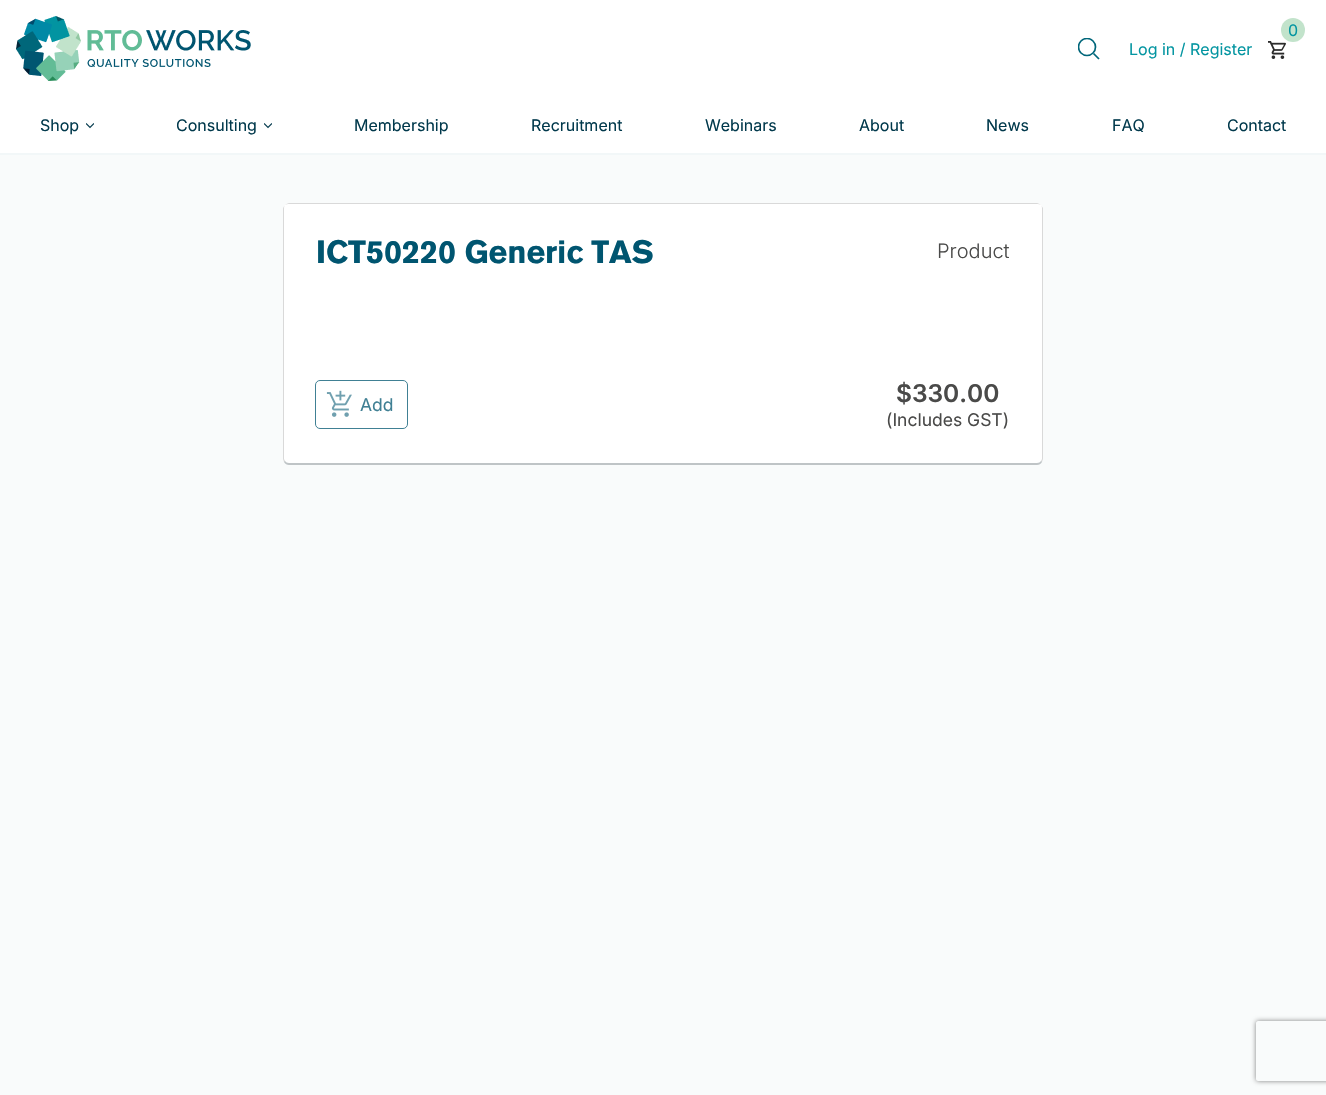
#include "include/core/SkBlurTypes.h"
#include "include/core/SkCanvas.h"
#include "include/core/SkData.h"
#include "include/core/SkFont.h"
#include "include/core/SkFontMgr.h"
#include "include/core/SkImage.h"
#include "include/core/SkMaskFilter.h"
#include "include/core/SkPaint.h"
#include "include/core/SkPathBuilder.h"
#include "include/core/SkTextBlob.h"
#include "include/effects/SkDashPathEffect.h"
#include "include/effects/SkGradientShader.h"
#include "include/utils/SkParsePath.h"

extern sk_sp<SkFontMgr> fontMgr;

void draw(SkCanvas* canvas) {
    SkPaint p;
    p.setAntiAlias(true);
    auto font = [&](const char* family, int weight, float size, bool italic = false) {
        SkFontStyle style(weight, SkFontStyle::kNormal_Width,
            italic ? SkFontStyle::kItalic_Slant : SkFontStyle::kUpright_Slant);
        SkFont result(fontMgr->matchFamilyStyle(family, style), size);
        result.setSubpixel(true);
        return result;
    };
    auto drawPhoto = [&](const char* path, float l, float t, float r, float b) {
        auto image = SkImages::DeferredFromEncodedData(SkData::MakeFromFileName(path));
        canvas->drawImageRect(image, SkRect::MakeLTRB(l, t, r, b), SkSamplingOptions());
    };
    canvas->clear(0xFFF9FBFB);
    p.setColor(0xFFFFFFFF);
    canvas->drawRect(SkRect::MakeLTRB(0, 0, 1326, 153), p);
    p.setColor(0xFFF2F7F8);
    canvas->drawRect(SkRect::MakeLTRB(0, 153, 1326, 155), p);
    drawPhoto("media/1.png", 16, 16, 251, 81);
    canvas->save();
    canvas->clipRect(SkRect::MakeLTRB(1078, 38, 1099, 59));
    p.setStyle(SkPaint::kStroke_Style);
    p.setStrokeWidth(1.7f);
    p.setColor(0xFF00667A);
    canvas->drawCircle(1087, 47, 8.5f, p);
    canvas->restore();
    canvas->drawPath(SkPathBuilder().moveTo(1093.5f, 53.5f).lineTo(1099, 59).detach(), p);
    drawPhoto("media/2.png", 1268, 41, 1286, 59);
    p.setStyle(SkPaint::kFill_Style);
    p.setColor(0xFFC2E3CB);
    canvas->drawCircle(1293, 30, 12, p);
    auto font1 = font("Inter", 400, 16);
    p.setColor(0xFF0395A1);
    canvas->drawString("0", 1288, 36, font1, p);
    canvas->drawString("Log in / Register", 1129, 55, font1, p);
    p.setColor(0xFF01394C);
    canvas->drawString("Shop", 40, 131, font1, p);
    canvas->save();
    canvas->clipRect(SkRect::MakeLTRB(86, 121, 94, 129));
    p.setStyle(SkPaint::kStroke_Style);
    p.setStrokeWidth(1.2f);
    p.setColor(0xFF043B4E);
    canvas->drawPath(SkPathBuilder().moveTo(86, 123.5f).lineTo(90, 127.5f).lineTo(94, 123.5f).detach(), p);
    canvas->restore();
    p.setStyle(SkPaint::kFill_Style);
    p.setColor(0xFF01394C);
    canvas->drawString("Consulting", 176, 131, font1, p);
    canvas->save();
    canvas->clipRect(SkRect::MakeLTRB(264, 121, 272, 129));
    p.setStyle(SkPaint::kStroke_Style);
    p.setColor(0xFF043B4E);
    canvas->drawPath(SkPathBuilder().moveTo(264, 123.5f).lineTo(268, 127.5f).lineTo(272, 123.5f).detach(), p);
    canvas->restore();
    p.setStyle(SkPaint::kFill_Style);
    p.setColor(0xFF01394C);
    {
        const struct { const char* s; float x, y; } items[] = {
            {"Membership", 354, 131},
            {"Recruitment", 531, 131},
            {"Webinars", 705, 131},
            {"About", 859, 131},
            {"News", 986, 131},
            {"FAQ", 1112, 131},
            {"Contact", 1227, 131},
        };
        for (auto [s, x, y] : items) {
            canvas->drawString(s, x, y, font1, p);
        }
    }
    p.setColor(0xFFFFFFFF);
    canvas->drawRoundRect(SkRect::MakeLTRB(283, 203, 1043, 465), 6, 6, p);
    p.setColor(0xFFD9D9D9);
    canvas->drawPath(SkPathBuilder().moveTo(289, 203).cubicTo(288, 203, 286, 204, 285, 205).cubicTo(286, 204, 288, 204, 289, 204).lineTo(1037, 204).cubicTo(1038, 204, 1040, 204, 1041, 205).cubicTo(1040, 204, 1038, 203, 1037, 203).close().detach(), p);
    canvas->drawPath(SkPathBuilder().moveTo(1043, 459).lineTo(1043, 208).lineTo(1041, 205).cubicTo(1042, 206, 1042, 208, 1042, 209).lineTo(1042, 459).lineTo(1041, 461).lineTo(1042, 462).close().detach(), p);
    p.setColor(0x4000151C);
    canvas->drawPath(SkPathBuilder().moveTo(289, 465).lineTo(1037, 465).cubicTo(1039, 465, 1041, 464, 1042, 462).lineTo(1041, 461).cubicTo(1040, 462, 1039, 463, 1037, 463).lineTo(289, 463).cubicTo(287, 463, 286, 462, 285, 461).lineTo(284, 462).cubicTo(285, 464, 287, 465, 289, 465).close().detach(), p);
    p.setColor(0x26000000);
    canvas->drawPath(SkPathBuilder().moveTo(283, 209).lineTo(283, 459).lineTo(284, 462).lineTo(285, 461).lineTo(284, 459).lineTo(284, 209).cubicTo(284, 208, 284, 206, 285, 205).cubicTo(284, 206, 283, 208, 283, 209).close().detach(), p);
    auto font2 = font("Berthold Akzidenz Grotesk", 700, 32);
    p.setColor(0xFF005570);
    canvas->drawString("ICT50220 Generic TAS", 316, 263, font2, p);
    auto font3 = font("Inter", 300, 20);
    p.setColor(0xFF4A4A49);
    canvas->drawString("Product", 937, 258, font3, p);
    p.setStyle(SkPaint::kStroke_Style);
    p.setStrokeWidth(1);
    p.setColor(0xFF408094);
    canvas->drawRoundRect(SkRect::MakeLTRB(315.5f, 380.5f, 407.5f, 428.5f), 4.5f, 4.5f, p);
    drawPhoto("media/3.png", 326, 390, 352, 417);
    auto font4 = font("Inter", 400, 17.5f);
    p.setStyle(SkPaint::kFill_Style);
    canvas->drawString("Add", 360, 411, font4, p);
    auto font5 = font("Inter", 600, 24.5f);
    p.setColor(0xFF4A4A49);
    canvas->drawString("$330.00", 896, 402, font5, p);
    canvas->drawString("(Includes GST)", 886, 426, font4, p);
    canvas->save();
    canvas->clipPath(SkPathBuilder(SkPathFillType::kEvenOdd).moveTo(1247, 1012).lineTo(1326, 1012).lineTo(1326, 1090).lineTo(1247, 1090).close().moveTo(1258, 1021).lineTo(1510, 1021).cubicTo(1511, 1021, 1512, 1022, 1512, 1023).lineTo(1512, 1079).cubicTo(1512, 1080, 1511, 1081, 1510, 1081).lineTo(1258, 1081).cubicTo(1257, 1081, 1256, 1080, 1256, 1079).lineTo(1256, 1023).cubicTo(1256, 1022, 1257, 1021, 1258, 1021).close().detach(), true);
    p.setColor(0xFF808080);
    p.setMaskFilter(SkMaskFilter::MakeBlur(kNormal_SkBlurStyle, 2.5f));
    canvas->drawRoundRect(SkRect::MakeLTRB(1256, 1021, 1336, 1081), 2, 2, p);
    p.setMaskFilter(nullptr);
    canvas->restore();
}
